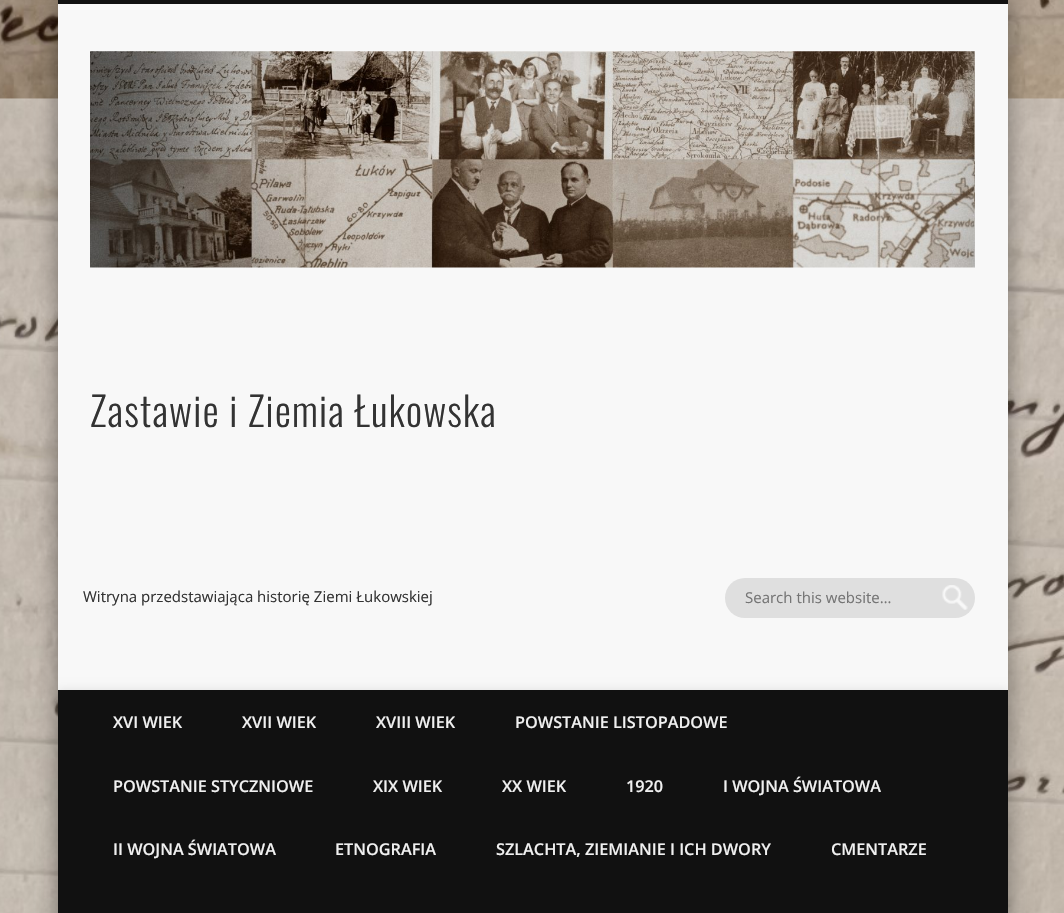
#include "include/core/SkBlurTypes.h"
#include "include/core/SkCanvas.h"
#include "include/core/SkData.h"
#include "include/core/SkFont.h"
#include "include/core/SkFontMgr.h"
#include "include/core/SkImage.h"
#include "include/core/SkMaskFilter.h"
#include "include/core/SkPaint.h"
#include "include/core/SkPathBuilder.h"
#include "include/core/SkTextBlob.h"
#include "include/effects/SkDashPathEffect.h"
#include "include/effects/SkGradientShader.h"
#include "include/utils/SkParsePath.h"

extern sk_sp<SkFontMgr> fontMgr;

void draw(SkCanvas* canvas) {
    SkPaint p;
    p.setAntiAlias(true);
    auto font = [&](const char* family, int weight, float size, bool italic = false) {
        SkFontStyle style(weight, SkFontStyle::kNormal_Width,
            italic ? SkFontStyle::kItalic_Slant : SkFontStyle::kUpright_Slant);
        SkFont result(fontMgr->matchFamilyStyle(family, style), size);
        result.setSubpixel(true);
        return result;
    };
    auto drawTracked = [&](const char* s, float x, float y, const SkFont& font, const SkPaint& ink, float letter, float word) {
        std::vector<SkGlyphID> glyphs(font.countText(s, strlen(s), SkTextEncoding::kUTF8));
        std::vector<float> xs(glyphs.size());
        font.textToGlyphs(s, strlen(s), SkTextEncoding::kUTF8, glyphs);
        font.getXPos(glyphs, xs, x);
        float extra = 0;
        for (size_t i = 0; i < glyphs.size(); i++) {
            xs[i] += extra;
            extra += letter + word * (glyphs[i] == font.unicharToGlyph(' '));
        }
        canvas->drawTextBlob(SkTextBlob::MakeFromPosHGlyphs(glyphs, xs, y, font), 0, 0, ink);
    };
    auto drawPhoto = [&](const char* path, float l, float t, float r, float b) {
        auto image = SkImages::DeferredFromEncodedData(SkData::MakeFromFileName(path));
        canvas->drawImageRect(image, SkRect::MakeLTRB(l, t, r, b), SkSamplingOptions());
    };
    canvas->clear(0xFFFFFFFF);
    drawPhoto("media/1.png", 0, 0, 1064, 913);
    p.setColor(0x66000000);
    p.setMaskFilter(SkMaskFilter::MakeBlur(kNormal_SkBlurStyle, 11));
    canvas->drawRect(SkRect::MakeLTRB(58, 0, 1008, 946), p);
    p.setMaskFilter(nullptr);
    p.setColor(0xFFF8F8F8);
    canvas->drawRect(SkRect::MakeLTRB(58, 4, 1008, 690), p);
    p.setColor(0xFF111111);
    canvas->drawRect(SkRect::MakeLTRB(58, 0, 1008, 4), p);
    drawPhoto("media/2.png", 90, 51, 975, 268);
    auto font1 = font("Oswald", 300, 40);
    p.setColor(0xFF333333);
    drawTracked("Zastawie i Ziemia Łukowska", 90, 427, font1, p, 1.25f, 0);
    auto font2 = font("Open Sans", 400, 15);
    canvas->drawString("Witryna przedstawiająca historię Ziemi Łukowskiej", 83, 602, font2, p);
    p.setColor(0xFFDFDFDF);
    canvas->drawRoundRect(SkRect::MakeLTRB(725, 578, 975, 618), 20, 20, p);
    drawPhoto("media/3.png", 942, 585, 968, 610);
    p.setColor(0xFF757575);
    canvas->drawString("Search this website…", 745, 603, font2, p);
    canvas->save();
    canvas->clipRect(SkRect::MakeLTRB(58, 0, 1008, 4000));
    p.setColor(0x1A000000);
    p.setMaskFilter(SkMaskFilter::MakeBlur(kNormal_SkBlurStyle, 4.5f));
    canvas->drawRect(SkRect::MakeLTRB(58, 690, 1008, 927), p);
    p.setMaskFilter(nullptr);
    canvas->restore();
    p.setColor(0xFF111111);
    canvas->drawRect(SkRect::MakeLTRB(58, 690, 1008, 913), p);
    auto font3 = font("Open Sans", 600, 16.25f);
    p.setColor(0xFFF0F0F0);
    {
        const struct { const char* s; float x, y; } items[] = {
            {"XVI WIEK", 113, 728},
            {"XVII WIEK", 242, 728},
            {"XVIII WIEK", 376, 728},
            {"POWSTANIE LISTOPADOWE", 515, 728},
            {"POWSTANIE STYCZNIOWE", 113, 792},
            {"XIX WIEK", 373, 792},
            {"XX WIEK", 502, 792},
            {"1920", 626, 792},
            {"I WOJNA ŚWIATOWA", 723, 792},
            {"II WOJNA ŚWIATOWA", 113, 855},
            {"ETNOGRAFIA", 335, 855},
            {"SZLACHTA, ZIEMIANIE I ICH DWORY", 496, 855},
            {"CMENTARZE", 831, 855},
        };
        for (auto [s, x, y] : items) {
            canvas->drawString(s, x, y, font3, p);
        }
    }
}
